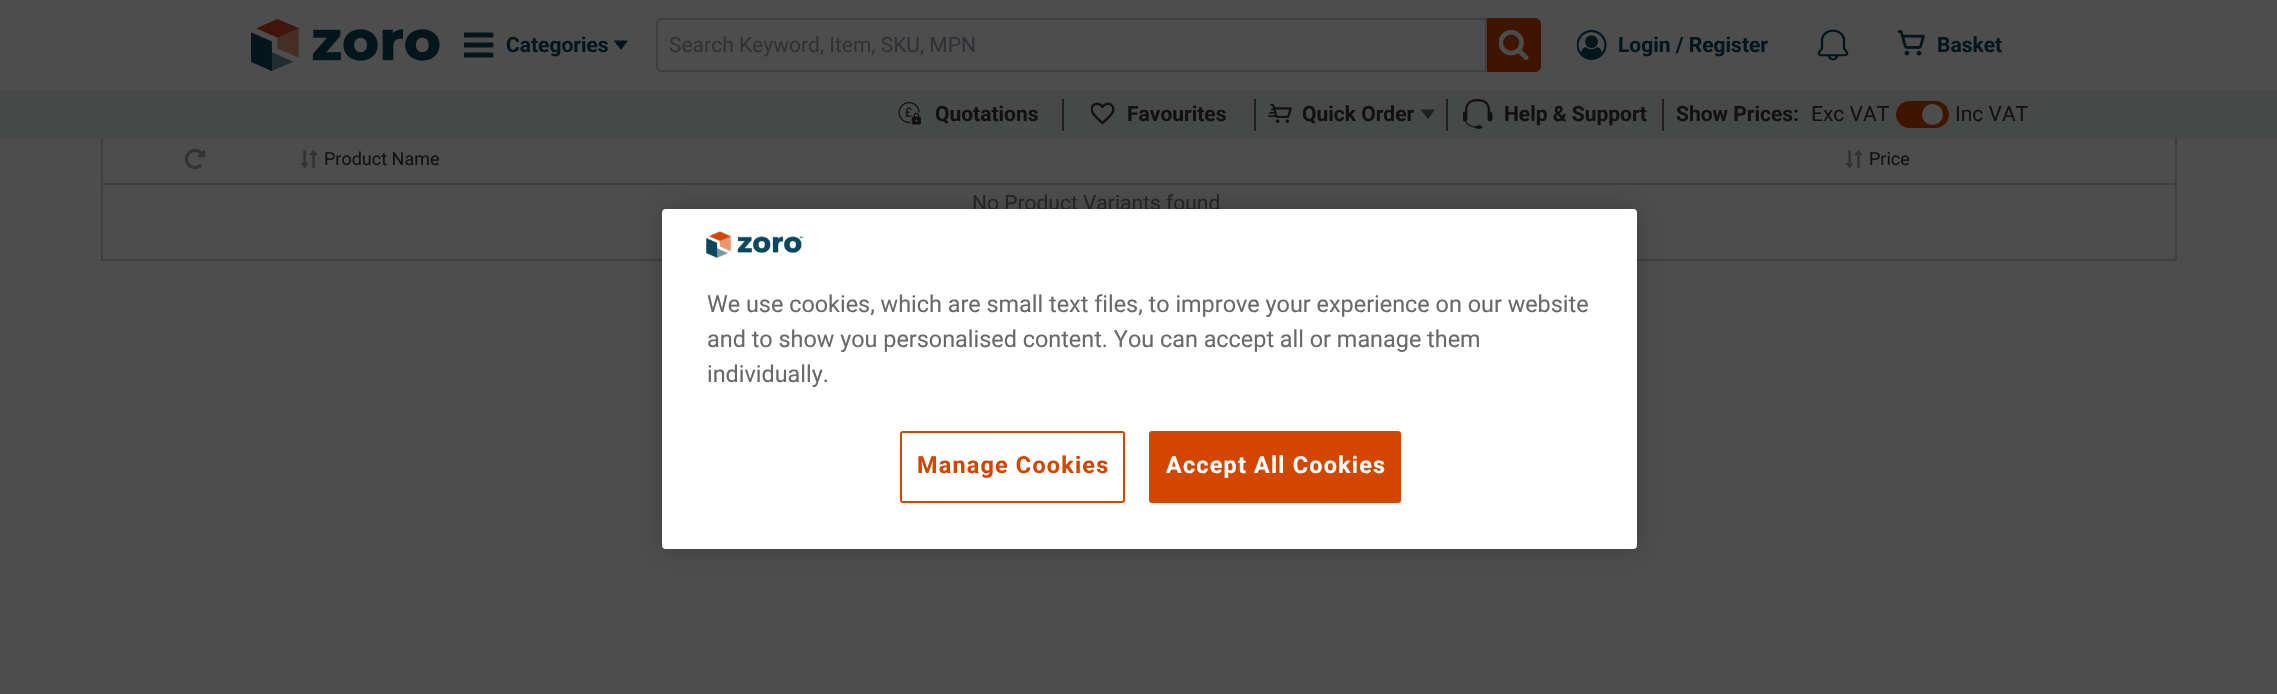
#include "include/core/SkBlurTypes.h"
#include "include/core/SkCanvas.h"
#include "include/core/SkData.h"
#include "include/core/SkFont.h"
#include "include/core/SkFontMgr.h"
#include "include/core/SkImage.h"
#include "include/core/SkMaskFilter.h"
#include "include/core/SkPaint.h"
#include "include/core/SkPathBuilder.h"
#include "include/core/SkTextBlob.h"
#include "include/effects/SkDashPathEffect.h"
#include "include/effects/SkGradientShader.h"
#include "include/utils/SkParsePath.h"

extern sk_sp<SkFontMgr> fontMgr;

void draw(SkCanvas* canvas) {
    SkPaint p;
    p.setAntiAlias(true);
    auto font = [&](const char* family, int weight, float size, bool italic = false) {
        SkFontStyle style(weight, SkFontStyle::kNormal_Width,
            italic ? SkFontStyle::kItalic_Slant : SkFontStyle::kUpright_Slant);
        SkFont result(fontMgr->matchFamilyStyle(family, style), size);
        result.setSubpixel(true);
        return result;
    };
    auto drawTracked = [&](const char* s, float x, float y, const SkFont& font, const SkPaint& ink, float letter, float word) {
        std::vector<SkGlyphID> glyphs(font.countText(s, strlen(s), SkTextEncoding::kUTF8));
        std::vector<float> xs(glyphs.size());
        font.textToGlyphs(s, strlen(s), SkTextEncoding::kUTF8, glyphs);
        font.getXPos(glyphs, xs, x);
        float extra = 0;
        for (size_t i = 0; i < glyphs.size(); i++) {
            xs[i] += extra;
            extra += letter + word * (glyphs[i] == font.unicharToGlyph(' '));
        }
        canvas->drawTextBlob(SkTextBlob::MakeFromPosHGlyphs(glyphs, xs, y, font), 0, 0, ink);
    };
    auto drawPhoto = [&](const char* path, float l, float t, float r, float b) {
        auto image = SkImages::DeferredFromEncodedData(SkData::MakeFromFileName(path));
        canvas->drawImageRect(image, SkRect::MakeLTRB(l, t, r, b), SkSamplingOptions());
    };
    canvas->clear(0xFF4D4D4D);
    p.setStyle(SkPaint::kStroke_Style);
    p.setStrokeWidth(2);
    p.setColor(0xFF3E3E3E);
    canvas->drawRect(SkRect::MakeLTRB(102, 55, 2176, 260), p);
    p.setStyle(SkPaint::kFill_Style);
    p.setColor(0xFF4D4D4D);
    canvas->drawRect(SkRect::MakeLTRB(101, 54, 2177, 90), p);
    drawPhoto("media/1.png", 251, 19, 440, 71);
    drawPhoto("media/2.png", 464, 32, 494, 58);
    auto font1 = font("Roboto", 700, 21);
    p.setColor(0xFF03161B);
    canvas->drawString("Categories", 506, 52, font1, p);
    canvas->drawPath(SkPathBuilder().moveTo(621, 50).lineTo(613.5f, 40.5f).lineTo(628, 40.5f).close().detach(), p);
    p.setStyle(SkPaint::kStroke_Style);
    p.setColor(0xFF3E3E3E);
    canvas->drawPath(SkPathBuilder().moveTo(662, 19).lineTo(1486, 19).lineTo(1486, 71).lineTo(662, 71).cubicTo(659, 71, 657, 69, 657, 66).lineTo(657, 24).cubicTo(657, 21, 659, 19, 662, 19).close().detach(), p);
    auto font2 = font("Roboto", 400, 21);
    p.setStyle(SkPaint::kFill_Style);
    p.setColor(0xFF2F3135);
    canvas->drawString("Search Keyword, Item, SKU, MPN", 669, 52, font2, p);
    p.setColor(0xFF3F1500);
    canvas->drawPath(SkPathBuilder().moveTo(1487, 18).lineTo(1535, 18).cubicTo(1538.5f, 18, 1541, 20.5f, 1541, 24).lineTo(1541, 66).cubicTo(1541, 69.5f, 1538.5f, 72, 1535, 72).lineTo(1487, 72).close().detach(), p);
    drawPhoto("media/3.png", 1499, 30, 1529, 60);
    drawPhoto("media/4.png", 1577, 30, 1607, 60);
    p.setColor(0xFF03161B);
    canvas->drawString("Login / Register", 1618, 52, font1, p);
    drawPhoto("media/5.png", 1817, 29, 1849, 61);
    drawPhoto("media/6.png", 1898, 30, 1925, 56);
    canvas->drawString("Basket", 1937, 52, font1, p);
    p.setColor(0xFF474949);
    canvas->drawRect(SkRect::MakeLTRB(0, 90, 2277, 138), p);
    drawPhoto("media/7.png", 898, 102, 921, 125);
    p.setColor(0xFF111111);
    canvas->drawString("Quotations", 935, 121, font1, p);
    p.setColor(0xFF202020);
    canvas->drawRect(SkRect::MakeLTRB(1062, 99, 1064, 131), p);
    drawPhoto("media/8.png", 1091, 102, 1115, 125);
    p.setColor(0xFF111111);
    canvas->drawString("Favourites", 1127, 121, font1, p);
    p.setColor(0xFF202020);
    canvas->drawRect(SkRect::MakeLTRB(1254, 99, 1256, 131), p);
    drawPhoto("media/9.png", 1267, 103, 1292, 123);
    p.setColor(0xFF111111);
    canvas->drawString("Quick Order", 1302, 121, font1, p);
    p.setColor(0xFF202020);
    canvas->drawPath(SkPathBuilder().moveTo(1428, 119).lineTo(1420.5f, 109.5f).lineTo(1435, 109.5f).close().detach(), p);
    canvas->drawRect(SkRect::MakeLTRB(1446, 99, 1448, 131), p);
    drawPhoto("media/10.png", 1463, 99, 1493, 129);
    p.setColor(0xFF111111);
    canvas->drawString("Help & Support", 1504, 121, font1, p);
    p.setColor(0xFF202020);
    canvas->drawRect(SkRect::MakeLTRB(1662, 99, 1664, 131), p);
    p.setColor(0xFF111111);
    canvas->drawString("Show Prices:", 1676, 121, font1, p);
    canvas->drawString("Exc VAT", 1811, 121, font2, p);
    p.setColor(0xFF3F1500);
    canvas->drawRoundRect(SkRect::MakeLTRB(1897, 102, 1948, 127), 12.5f, 12.5f, p);
    p.setStyle(SkPaint::kStroke_Style);
    canvas->drawRoundRect(SkRect::MakeLTRB(1897, 102, 1948, 127), 12.5f, 12.5f, p);
    p.setStyle(SkPaint::kFill_Style);
    p.setColor(0xFF4D4D4D);
    canvas->drawCircle(1932.5f, 114.5f, 10.5f, p);
    p.setColor(0xFF111111);
    canvas->drawString("Inc VAT", 1955, 121, font2, p);
    p.setColor(0xFF3E3E3E);
    canvas->drawRect(SkRect::MakeLTRB(102, 183, 2175, 185), p);
    drawPhoto("media/11.png", 185, 149, 206, 170);
    drawPhoto("media/12.png", 300, 150, 318, 168);
    auto font3 = font("Roboto", 400, 18);
    p.setColor(0xFF111111);
    canvas->drawString("Product Name", 324, 165, font3, p);
    drawPhoto("media/12.png", 1845, 150, 1863, 168);
    canvas->drawString("Price", 1869, 165, font3, p);
    p.setColor(0xFF262626);
    canvas->drawString("No Product Variants found", 972, 210, font2, p);
    p.setColor(0x33000000);
    p.setMaskFilter(SkMaskFilter::MakeBlur(kNormal_SkBlurStyle, 13.5f));
    canvas->drawRoundRect(SkRect::MakeLTRB(662, 209, 1637, 549), 4, 4, p);
    p.setMaskFilter(nullptr);
    p.setColor(0xFFFFFFFF);
    canvas->drawRoundRect(SkRect::MakeLTRB(662, 209, 1637, 549), 4, 4, p);
    drawPhoto("media/13.png", 706, 231, 804, 259);
    auto font4 = font("Roboto", 400, 23.4f);
    p.setColor(0xFF696969);
    {
        const struct { const char* s; float x, y; } items[] = {
            {"We use cookies, which are small text files, to improve your experience on our website", 707, 312},
            {"and to show you personalised content. You can accept all or manage them", 707, 347},
            {"individually.", 707, 382},
        };
        for (auto [s, x, y] : items) {
            canvas->drawString(s, x, y, font4, p);
        }
    }
    p.setStyle(SkPaint::kStroke_Style);
    p.setColor(0xFFD24600);
    canvas->drawRoundRect(SkRect::MakeLTRB(901, 432, 1124, 502), 2, 2, p);
    auto font5 = font("Roboto", 700, 23.4f);
    p.setStyle(SkPaint::kFill_Style);
    drawTracked("Manage Cookies", 917, 473, font5, p, 1.2f, 0);
    canvas->drawRoundRect(SkRect::MakeLTRB(1150, 432, 1400, 502), 2, 2, p);
    p.setStyle(SkPaint::kStroke_Style);
    canvas->drawRoundRect(SkRect::MakeLTRB(1150, 432, 1400, 502), 2, 2, p);
    p.setStyle(SkPaint::kFill_Style);
    p.setColor(0xFFFFFFFF);
    drawTracked("Accept All Cookies", 1166, 473, font5, p, 1.2f, 0);
}
